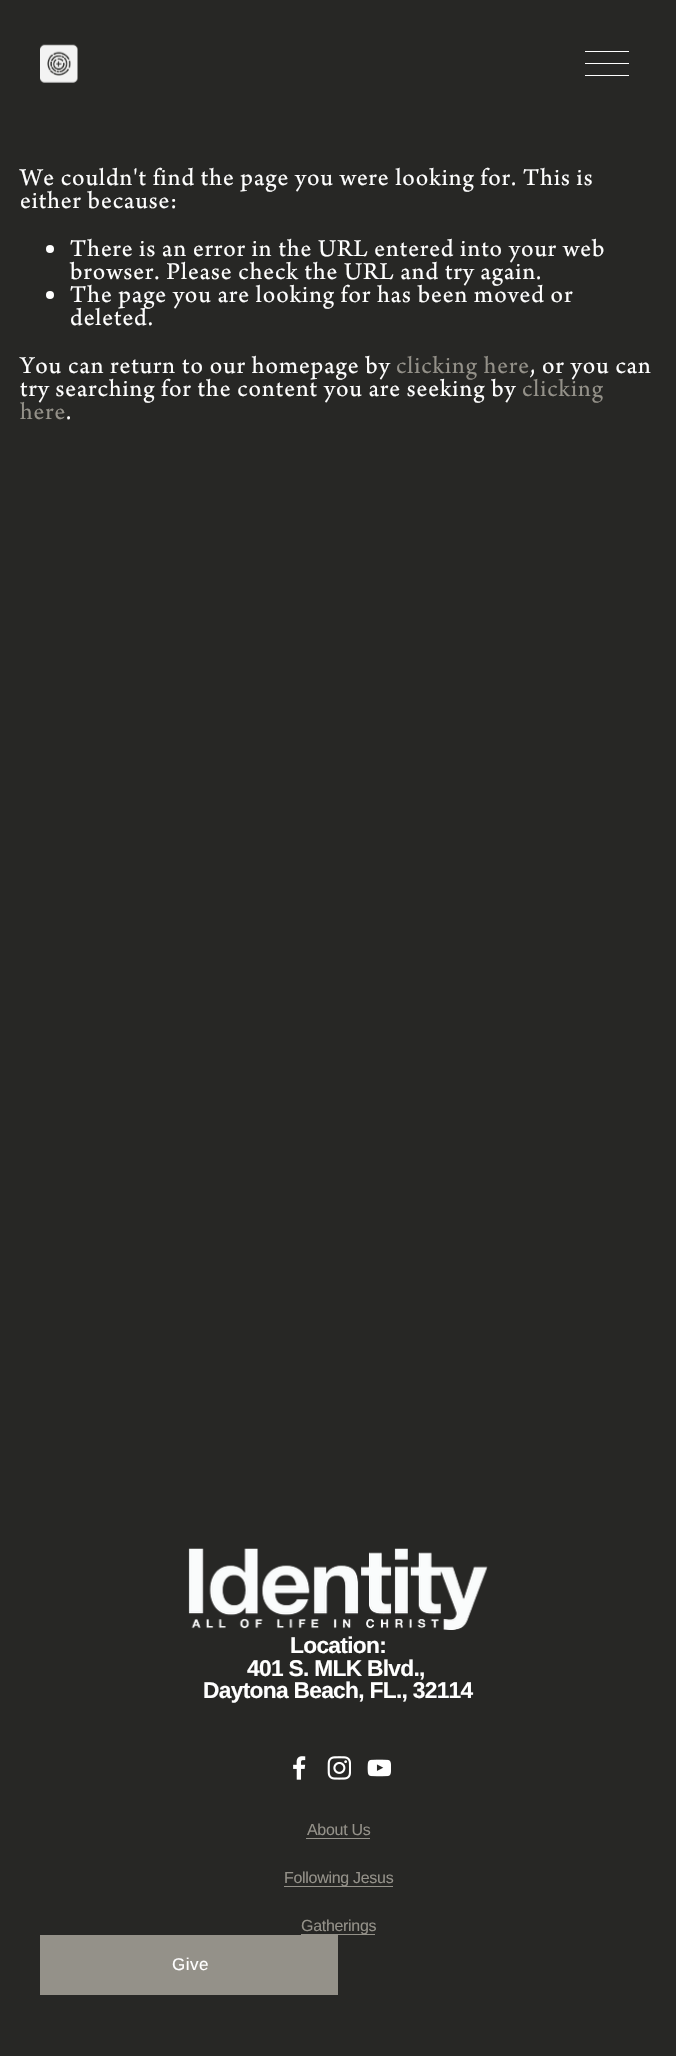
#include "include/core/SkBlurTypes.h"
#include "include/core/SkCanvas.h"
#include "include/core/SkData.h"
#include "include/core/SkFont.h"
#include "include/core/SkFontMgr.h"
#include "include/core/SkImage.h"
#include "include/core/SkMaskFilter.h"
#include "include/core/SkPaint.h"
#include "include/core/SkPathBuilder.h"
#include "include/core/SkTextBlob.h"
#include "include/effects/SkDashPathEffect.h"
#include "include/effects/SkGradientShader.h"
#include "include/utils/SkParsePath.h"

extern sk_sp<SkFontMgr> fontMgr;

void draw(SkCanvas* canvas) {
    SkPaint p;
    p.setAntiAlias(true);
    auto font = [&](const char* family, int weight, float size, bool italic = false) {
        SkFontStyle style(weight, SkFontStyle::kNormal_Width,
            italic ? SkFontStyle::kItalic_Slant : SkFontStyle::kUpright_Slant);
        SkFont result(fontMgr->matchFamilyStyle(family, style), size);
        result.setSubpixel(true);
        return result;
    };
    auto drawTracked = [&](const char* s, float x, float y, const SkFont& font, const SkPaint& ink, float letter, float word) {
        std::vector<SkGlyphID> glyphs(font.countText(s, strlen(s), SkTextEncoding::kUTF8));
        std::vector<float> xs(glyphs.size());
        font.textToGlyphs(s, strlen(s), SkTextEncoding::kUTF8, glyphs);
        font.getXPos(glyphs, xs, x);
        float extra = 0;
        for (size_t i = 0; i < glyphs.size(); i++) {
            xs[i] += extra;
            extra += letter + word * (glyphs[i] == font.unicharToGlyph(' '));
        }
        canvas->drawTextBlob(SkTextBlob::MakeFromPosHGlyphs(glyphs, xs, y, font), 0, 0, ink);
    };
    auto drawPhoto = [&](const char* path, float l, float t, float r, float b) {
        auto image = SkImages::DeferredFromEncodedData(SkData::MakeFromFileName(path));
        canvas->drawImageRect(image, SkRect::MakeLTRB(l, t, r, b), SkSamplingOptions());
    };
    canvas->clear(0xFF272725);
    drawPhoto("media/1.png", 40, 44, 78, 83);
    {
        const struct { float l, t, r, b; SkColor color; } items[] = {
            {585, 51, 629, 52, 0xFFFFFFFF},
            {585, 63, 629, 64, 0xFFFFFFFF},
            {585, 75, 629, 76, 0xFFFFFFFF},
        };
        for (auto [l, t, r, b, color] : items) {
            p.setColor(color);
            canvas->drawRect(SkRect::MakeLTRB(l, t, r, b), p);
        }
    }
    auto font1 = font("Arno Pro", 400, 25.4f);
    drawTracked("We couldn't find the page you were looking for. This is", 20, 185, font1, p, 1.02f, 0);
    drawTracked("either because:", 20, 208, font1, p, 1.02f, 0);
    canvas->drawCircle(50, 249, 4, p);
    drawTracked("There is an error in the URL entered into your web", 70, 256, font1, p, 1.02f, 0);
    drawTracked("browser. Please check the URL and try again.", 70, 279, font1, p, 1.02f, 0);
    canvas->drawCircle(50, 295, 4, p);
    {
        const struct { const char* s; float x, y; } items[] = {
            {"The page you are looking for has been moved or", 70, 302},
            {"deleted.", 70, 325},
            {"You can return to our homepage by", 20, 373},
        };
        for (auto [s, x, y] : items) {
            drawTracked(s, x, y, font1, p, 1.02f, 0);
        }
    }
    p.setColor(0xFF949189);
    drawTracked("clicking here", 396, 373, font1, p, 1.02f, 0);
    p.setColor(0xFFFFFFFF);
    drawTracked(", or you can", 530, 373, font1, p, 1.02f, 0);
    drawTracked("try searching for the content you are seeking by", 20, 396, font1, p, 1.02f, 0);
    p.setColor(0xFF949189);
    drawTracked("clicking", 522, 396, font1, p, 1.02f, 0);
    drawTracked("here", 20, 419, font1, p, 1.02f, 0);
    p.setColor(0xFFFFFFFF);
    drawTracked(".", 66, 419, font1, p, 1.02f, 0);
    drawPhoto("media/2.png", 188, 1548, 488, 1630);
    auto font2 = font("Liberation Sans", 700, 22.75f);
    {
        const struct { const char* s; float x, y; } items[] = {
            {"Location:", 290, 1653},
            {"401 S. MLK Blvd.,", 247, 1676},
            {"Daytona Beach, FL., 32114", 203, 1698},
        };
        for (auto [s, x, y] : items) {
            drawTracked(s, x, y, font2, p, -0.7f, 0);
        }
    }
    drawPhoto("media/3.png", 293, 1756, 306, 1780);
    drawPhoto("media/4.png", 327, 1756, 351, 1780);
    drawPhoto("media/5.png", 367, 1759, 391, 1777);
    auto font3 = font("Liberation Sans", 400, 16);
    p.setColor(0xFF949189);
    drawTracked("About Us", 307, 1835, font3, p, -0.3f, 0);
    canvas->drawRect(SkRect::MakeLTRB(306, 1838, 370, 1839), p);
    canvas->drawRect(SkRect::MakeLTRB(284, 1886, 393, 1887), p);
    drawTracked("Following Jesus", 284, 1883, font3, p, -0.3f, 0);
    canvas->drawRect(SkRect::MakeLTRB(301, 1934, 375, 1935), p);
    drawTracked("Gatherings", 301, 1931, font3, p, -0.3f, 0);
    canvas->drawRect(SkRect::MakeLTRB(40, 1935, 338, 1995), p);
    auto font4 = font("Liberation Sans", 400, 17);
    p.setColor(0xFFFFFFFF);
    drawTracked("Give", 172, 1970, font4, p, 0.5f, 0);
}
